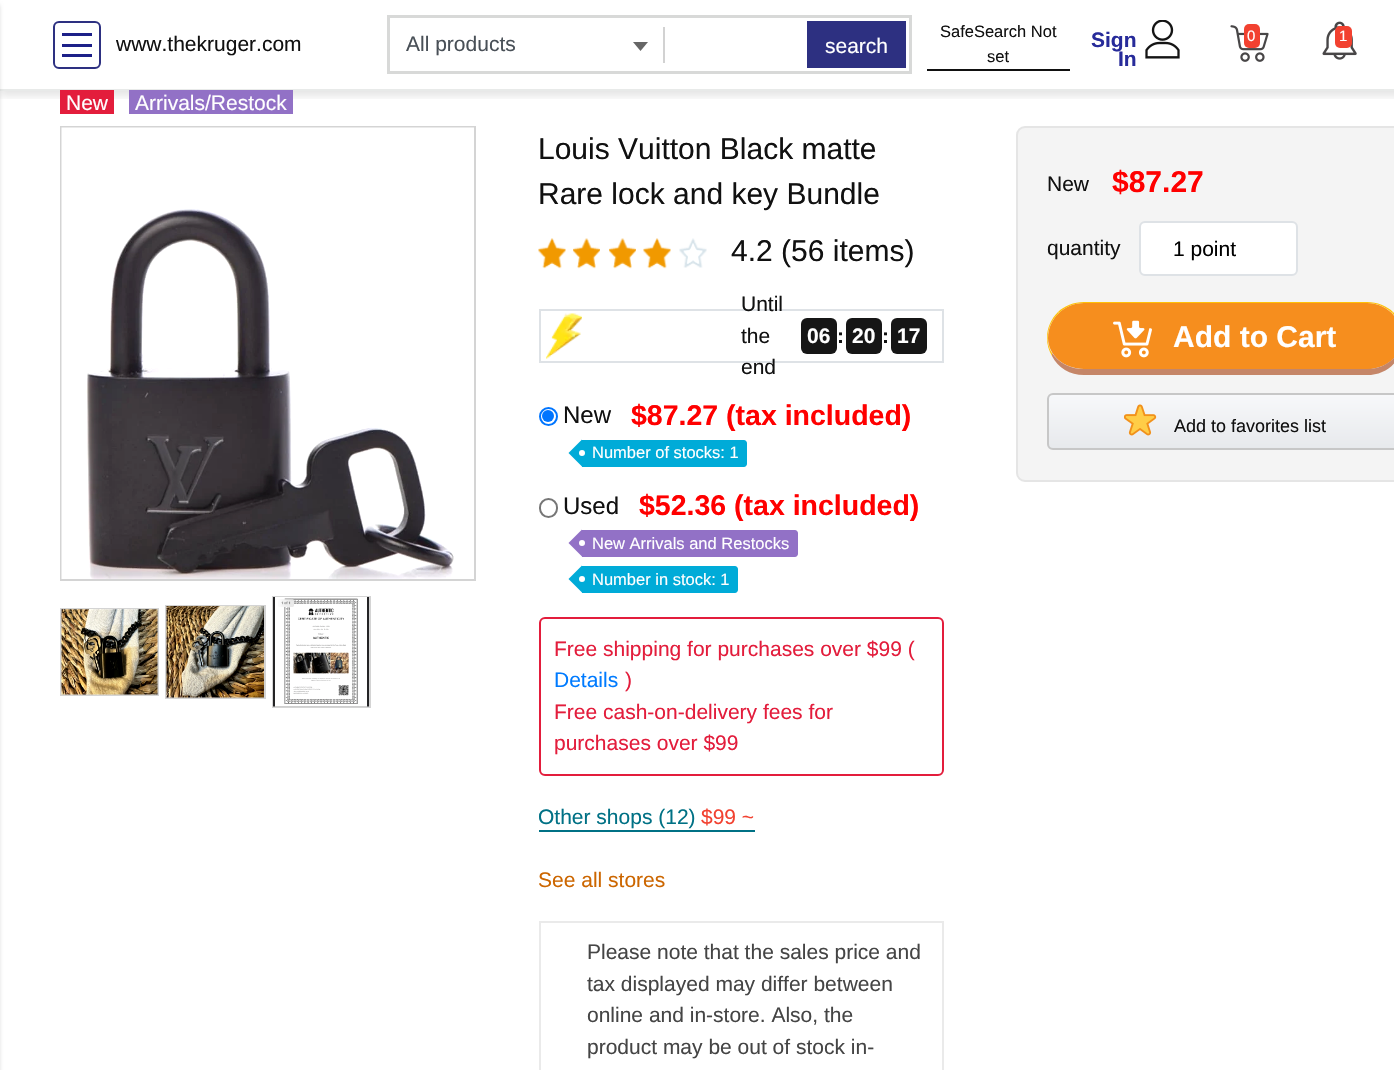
#include "include/core/SkBlurTypes.h"
#include "include/core/SkCanvas.h"
#include "include/core/SkData.h"
#include "include/core/SkFont.h"
#include "include/core/SkFontMgr.h"
#include "include/core/SkImage.h"
#include "include/core/SkMaskFilter.h"
#include "include/core/SkPaint.h"
#include "include/core/SkPathBuilder.h"
#include "include/core/SkTextBlob.h"
#include "include/effects/SkDashPathEffect.h"
#include "include/effects/SkGradientShader.h"
#include "include/utils/SkParsePath.h"

extern sk_sp<SkFontMgr> fontMgr;

void draw(SkCanvas* canvas) {
    SkPaint p;
    p.setAntiAlias(true);
    auto font = [&](const char* family, int weight, float size, bool italic = false) {
        SkFontStyle style(weight, SkFontStyle::kNormal_Width,
            italic ? SkFontStyle::kItalic_Slant : SkFontStyle::kUpright_Slant);
        SkFont result(fontMgr->matchFamilyStyle(family, style), size);
        result.setSubpixel(true);
        return result;
    };
    auto drawPhoto = [&](const char* path, float l, float t, float r, float b) {
        auto image = SkImages::DeferredFromEncodedData(SkData::MakeFromFileName(path));
        canvas->drawImageRect(image, SkRect::MakeLTRB(l, t, r, b), SkSamplingOptions());
    };
    canvas->clear(0xFFFFFFFF);
    canvas->save();
    canvas->clipRect(SkRect::MakeLTRB(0, 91, 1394, 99));
    p.setColor(0x1A000000);
    p.setMaskFilter(SkMaskFilter::MakeBlur(kNormal_SkBlurStyle, 4));
    canvas->drawRect(SkRect::MakeLTRB(0, 6, 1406, 96), p);
    p.setMaskFilter(nullptr);
    canvas->restore();
    p.setColor(0xFFE8EAE9);
    canvas->drawRect(SkRect::MakeLTRB(0, 89, 1394, 91), p);
    p.setStyle(SkPaint::kStroke_Style);
    p.setStrokeWidth(2);
    p.setColor(0xFF2D3081);
    canvas->drawRoundRect(SkRect::MakeLTRB(54, 22, 100, 68), 5, 5, p);
    p.setStyle(SkPaint::kFill_Style);
    {
        const struct { float l, t, r, b; SkColor color; } items[] = {
            {62, 33, 92, 36, 0xFF1D2088},
            {62, 44, 92, 47, 0xFF1D2088},
            {62, 54, 92, 57, 0xFF1D2088},
        };
        for (auto [l, t, r, b, color] : items) {
            p.setColor(color);
            canvas->drawRect(SkRect::MakeLTRB(l, t, r, b), p);
        }
    }
    auto font1 = font("Liberation Sans", 400, 21);
    p.setColor(0xFF111111);
    canvas->drawString("www.thekruger.com", 116, 51, font1, p);
    p.setStyle(SkPaint::kStroke_Style);
    p.setStrokeWidth(3);
    p.setColor(0xFFD8D9D8);
    canvas->drawRect(SkRect::MakeLTRB(388.5f, 16.5f, 910.5f, 72.5f), p);
    p.setStyle(SkPaint::kFill_Style);
    p.setColor(0xFF495057);
    canvas->drawString("All products", 406, 51, font1, p);
    p.setColor(0xFF666666);
    canvas->drawPath(SkPathBuilder().moveTo(633, 42).lineTo(648, 42).lineTo(640.5f, 51).close().detach(), p);
    p.setColor(0xFFD2D2D2);
    canvas->drawRect(SkRect::MakeLTRB(663, 27, 665, 63), p);
    p.setColor(0xFF2D3081);
    canvas->drawRect(SkRect::MakeLTRB(807, 21, 906, 68), p);
    p.setColor(0xFFFFFFFF);
    canvas->drawString("search", 825, 53, font1, p);
    p.setColor(0xFF111111);
    canvas->drawRect(SkRect::MakeLTRB(927, 69, 1070, 71), p);
    auto font2 = font("Liberation Sans", 400, 16.5f);
    canvas->drawString("SafeSearch Not", 940, 37, font2, p);
    canvas->drawString("set", 987, 62, font2, p);
    auto font3 = font("Liberation Sans", 700, 21);
    p.setColor(0xFF272B9A);
    canvas->drawString("Sign", 1091, 47, font3, p);
    canvas->drawString("In", 1118, 66, font3, p);
    drawPhoto("media/1.png", 1145, 20, 1180, 59);
    drawPhoto("media/2.png", 1230, 25, 1269, 62);
    p.setColor(0xFFF24130);
    canvas->drawRoundRect(SkRect::MakeLTRB(1244, 24, 1260, 48), 5, 5, p);
    auto font4 = font("Liberation Sans", 400, 15);
    p.setColor(0xFFFFFFFF);
    canvas->drawString("0", 1247, 41, font4, p);
    drawPhoto("media/3.png", 1322, 21, 1357, 60);
    p.setColor(0xFFF24130);
    canvas->drawRoundRect(SkRect::MakeLTRB(1335, 26, 1352, 48), 5, 5, p);
    p.setColor(0xFFFFFFFF);
    canvas->drawString("1", 1339, 41, font4, p);
    p.setColor(0x33000000);
    p.setMaskFilter(SkMaskFilter::MakeBlur(kNormal_SkBlurStyle, 2));
    canvas->drawRect(SkRect::MakeLTRB(-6, 5, -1, 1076), p);
    p.setMaskFilter(nullptr);
    p.setColor(0xFFE31D3C);
    canvas->drawRect(SkRect::MakeLTRB(60, 90, 114, 114), p);
    p.setColor(0xFFFFFFFF);
    canvas->drawString("New", 66, 110, font1, p);
    p.setColor(0xFF9271C6);
    canvas->drawRect(SkRect::MakeLTRB(129, 90, 293, 114), p);
    p.setColor(0xFFFFFFFF);
    canvas->drawString("Arrivals/Restock", 135, 110, font1, p);
    p.setStyle(SkPaint::kStroke_Style);
    p.setStrokeWidth(2);
    p.setColor(0xFFD4D4D4);
    canvas->drawRect(SkRect::MakeLTRB(61, 127, 475, 580), p);
    drawPhoto("media/4.png", 61, 127, 474, 579);
    canvas->drawRect(SkRect::MakeLTRB(273, 597, 370, 707), p);
    canvas->drawRect(SkRect::MakeLTRB(166, 606, 265, 698), p);
    drawPhoto("media/5.png", 273, 597, 369, 707);
    canvas->drawRect(SkRect::MakeLTRB(61, 609, 158, 695), p);
    drawPhoto("media/6.png", 166, 606, 264, 698);
    drawPhoto("media/7.png", 61, 609, 158, 695);
    auto font5 = font("Liberation Sans", 400, 30);
    p.setStyle(SkPaint::kFill_Style);
    p.setColor(0xFF111111);
    canvas->drawString("Louis Vuitton Black matte", 538, 159, font5, p);
    canvas->drawString("Rare lock and key Bundle", 538, 204, font5, p);
    drawPhoto("media/8.png", 538, 238, 566, 269);
    drawPhoto("media/9.png", 573, 238, 600, 269);
    drawPhoto("media/9.png", 609, 238, 636, 269);
    drawPhoto("media/8.png", 643, 238, 671, 269);
    drawPhoto("media/10.png", 679, 238, 707, 268);
    canvas->drawString("4.2 (56 items)", 731, 261, font5, p);
    p.setStyle(SkPaint::kStroke_Style);
    p.setColor(0xFFDEE2E6);
    canvas->drawRect(SkRect::MakeLTRB(540, 310, 943, 362), p);
    drawPhoto("media/11.png", 546, 313, 582, 359);
    p.setStyle(SkPaint::kFill_Style);
    p.setColor(0xFF111111);
    {
        const struct { const char* s; float x, y; } items[] = {
            {"Until", 741, 311},
            {"the", 741, 343},
            {"end", 741, 374},
        };
        for (auto [s, x, y] : items) {
            canvas->drawString(s, x, y, font1, p);
        }
    }
    p.setColor(0xFF161616);
    canvas->drawRoundRect(SkRect::MakeLTRB(801, 318, 837, 354), 6, 6, p);
    p.setColor(0xFFFFFFFF);
    canvas->drawString("06", 807, 343, font3, p);
    p.setColor(0xFF111111);
    canvas->drawString(":", 837, 343, font3, p);
    p.setColor(0xFF161616);
    canvas->drawRoundRect(SkRect::MakeLTRB(846, 318, 882, 354), 6, 6, p);
    p.setColor(0xFFFFFFFF);
    canvas->drawString("20", 852, 343, font3, p);
    p.setColor(0xFF111111);
    canvas->drawString(":", 882, 343, font3, p);
    p.setColor(0xFF161616);
    canvas->drawRoundRect(SkRect::MakeLTRB(891, 318, 927, 354), 6, 6, p);
    p.setColor(0xFFFFFFFF);
    canvas->drawString("17", 897, 343, font3, p);
    p.setStyle(SkPaint::kStroke_Style);
    p.setColor(0xFF0075FF);
    canvas->drawCircle(548.5f, 416.5f, 8.5f, p);
    p.setStyle(SkPaint::kFill_Style);
    canvas->drawCircle(548, 416, 6, p);
    auto font6 = font("Liberation Sans", 400, 24);
    p.setColor(0xFF111111);
    canvas->drawString("New", 563, 423, font6, p);
    auto font7 = font("Liberation Sans", 700, 28.5f);
    p.setColor(0xFFFF0000);
    canvas->drawString("$87.27 (tax included)", 631, 425, font7, p);
    p.setColor(0xFF00ABD8);
    canvas->drawPath(SkPathBuilder().moveTo(582, 440).lineTo(744, 440).cubicTo(745.5f, 440, 747, 441.5f, 747, 443).lineTo(747, 464).cubicTo(747, 465.5f, 745.5f, 467, 744, 467).lineTo(582, 467).close().detach(), p);
    canvas->drawPath(SkPathBuilder().moveTo(582, 439.5f).lineTo(582, 466.5f).lineTo(568.5f, 453).close().detach(), p);
    p.setColor(0xFFFFFFFF);
    canvas->drawString("Number of stocks: 1", 592, 458, font2, p);
    canvas->drawCircle(582, 453, 3, p);
    p.setStyle(SkPaint::kStroke_Style);
    p.setColor(0xFF767676);
    canvas->drawRoundRect(SkRect::MakeLTRB(540, 499, 557, 517), 8.5f, 8.5f, p);
    p.setStyle(SkPaint::kFill_Style);
    p.setColor(0xFF111111);
    canvas->drawString("Used", 563, 514, font6, p);
    p.setColor(0xFFFF0000);
    canvas->drawString("$52.36 (tax included)", 639, 515, font7, p);
    p.setColor(0xFF9271C6);
    canvas->drawPath(SkPathBuilder().moveTo(582, 530).lineTo(795, 530).cubicTo(796.5f, 530, 798, 531.5f, 798, 533).lineTo(798, 554).cubicTo(798, 555.5f, 796.5f, 557, 795, 557).lineTo(582, 557).close().detach(), p);
    canvas->drawPath(SkPathBuilder().moveTo(582, 529.5f).lineTo(582, 556.5f).lineTo(568.5f, 543).close().detach(), p);
    p.setColor(0xFFFFFFFF);
    canvas->drawString("New Arrivals and Restocks", 592, 549, font2, p);
    canvas->drawCircle(582, 543, 3, p);
    p.setColor(0xFF00ABD8);
    canvas->drawPath(SkPathBuilder().moveTo(582, 566).lineTo(735, 566).cubicTo(736.5f, 566, 738, 567.5f, 738, 569).lineTo(738, 590).cubicTo(738, 591.5f, 736.5f, 593, 735, 593).lineTo(582, 593).close().detach(), p);
    canvas->drawPath(SkPathBuilder().moveTo(582, 565.5f).lineTo(582, 592.5f).lineTo(568.5f, 579).close().detach(), p);
    p.setColor(0xFFFFFFFF);
    canvas->drawString("Number in stock: 1", 592, 585, font2, p);
    canvas->drawCircle(582, 579, 3, p);
    p.setStyle(SkPaint::kStroke_Style);
    p.setColor(0xFFE31D3C);
    canvas->drawRoundRect(SkRect::MakeLTRB(540, 618, 943, 775), 5, 5, p);
    p.setStyle(SkPaint::kFill_Style);
    canvas->drawString("Free shipping for purchases over $99 (", 554, 656, font1, p);
    p.setColor(0xFF007BFF);
    canvas->drawString("Details", 554, 687, font1, p);
    p.setColor(0xFFE31D3C);
    {
        const struct { const char* s; float x, y; } items[] = {
            {")", 625, 687},
            {"Free cash-on-delivery fees for", 554, 719},
            {"purchases over $99", 554, 750},
        };
        for (auto [s, x, y] : items) {
            canvas->drawString(s, x, y, font1, p);
        }
    }
    p.setColor(0xFF007185);
    canvas->drawString("Other shops (12)", 538, 824, font1, p);
    canvas->drawRect(SkRect::MakeLTRB(539, 830, 755, 832), p);
    p.setColor(0xFFF24130);
    canvas->drawString("$99 ~", 701, 824, font1, p);
    p.setColor(0xFFCC6600);
    canvas->drawString("See all stores", 538, 887, font1, p);
    p.setStyle(SkPaint::kStroke_Style);
    p.setColor(0xFFEAEAEA);
    canvas->drawRect(SkRect::MakeLTRB(540, 922, 943, 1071), p);
    p.setStyle(SkPaint::kFill_Style);
    p.setColor(0xFF454545);
    {
        const struct { const char* s; float x, y; } items[] = {
            {"Please note that the sales price and", 587, 959},
            {"tax displayed may differ between", 587, 991},
            {"online and in-store. Also, the", 587, 1022},
            {"product may be out of stock in-", 587, 1054},
        };
        for (auto [s, x, y] : items) {
            canvas->drawString(s, x, y, font1, p);
        }
    }
    p.setColor(0xFFF4F4F4);
    canvas->drawRoundRect(SkRect::MakeLTRB(1017, 127, 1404, 481), 8, 8, p);
    p.setStyle(SkPaint::kStroke_Style);
    p.setColor(0xFFE5E5E5);
    canvas->drawRoundRect(SkRect::MakeLTRB(1017, 127, 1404, 481), 8, 8, p);
    p.setStyle(SkPaint::kFill_Style);
    p.setColor(0xFF111111);
    canvas->drawString("New", 1047, 191, font1, p);
    auto font8 = font("Liberation Sans", 700, 30);
    p.setColor(0xFFFF0000);
    canvas->drawString("$87.27", 1112, 192, font8, p);
    p.setColor(0xFF111111);
    canvas->drawString("quantity", 1047, 255, font1, p);
    p.setColor(0xFFFFFFFF);
    canvas->drawRoundRect(SkRect::MakeLTRB(1140, 222, 1297, 275), 5, 5, p);
    p.setStyle(SkPaint::kStroke_Style);
    p.setColor(0xFFDEE2E6);
    canvas->drawRoundRect(SkRect::MakeLTRB(1140, 222, 1297, 275), 5, 5, p);
    p.setStyle(SkPaint::kFill_Style);
    p.setColor(0xFF000000);
    canvas->drawString("1 point", 1173, 256, font1, p);
    p.setColor(0xFFF68E1E);
    canvas->drawPath(SkPathBuilder().moveTo(1084, 303).lineTo(1367, 303).cubicTo(1387, 303, 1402, 319, 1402, 338).cubicTo(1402, 355, 1387, 369, 1367, 369).lineTo(1084, 369).cubicTo(1064, 369, 1048, 355, 1048, 338).cubicTo(1048, 319, 1064, 303, 1084, 303).close().detach(), p);
    p.setColor(0xFFFFC107);
    canvas->drawPath(SkPathBuilder().moveTo(1084, 302).cubicTo(1074, 302, 1064, 306, 1058, 312).lineTo(1059, 313).cubicTo(1065, 307, 1074, 303, 1084, 303).lineTo(1367, 303).cubicTo(1377, 303, 1386, 307, 1392, 313).lineTo(1393, 312).cubicTo(1387, 306, 1377, 302, 1367, 302).close().detach(), p);
    canvas->drawPath(SkPathBuilder().moveTo(1393, 312).cubicTo(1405, 324, 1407, 342, 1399, 356).lineTo(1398, 352).cubicTo(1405, 340, 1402, 323, 1392, 313).close().detach(), p);
    p.setColor(0xFFC58668);
    canvas->drawPath(SkPathBuilder().moveTo(1084, 375).lineTo(1367, 375).cubicTo(1381, 375, 1393, 368, 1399, 356).lineTo(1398, 352).cubicTo(1393, 362, 1381, 369, 1367, 369).lineTo(1084, 369).cubicTo(1070, 369, 1059, 363, 1052, 353).lineTo(1052, 356).cubicTo(1058, 368, 1070, 375, 1084, 375).close().detach(), p);
    p.setColor(0xFFFFC107);
    canvas->drawPath(SkPathBuilder().moveTo(1047, 338).cubicTo(1047, 345, 1049, 351, 1052, 356).lineTo(1052, 353).cubicTo(1044, 340, 1048, 323, 1059, 313).lineTo(1058, 312).cubicTo(1051, 319, 1047, 328, 1047, 338).close().detach(), p);
    drawPhoto("media/12.png", 1113, 320, 1152, 358);
    p.setColor(0xFFFFFFFF);
    canvas->drawString("Add to Cart", 1173, 347, font8, p);
    canvas->save();
    canvas->clipPath(SkPathBuilder().moveTo(1053, 393).lineTo(1398, 393).cubicTo(1401.5f, 393, 1404, 395.5f, 1404, 399).lineTo(1404, 444).cubicTo(1404, 447.5f, 1401.5f, 450, 1398, 450).lineTo(1053, 450).cubicTo(1049.5f, 450, 1047, 447.5f, 1047, 444).lineTo(1047, 399).cubicTo(1047, 395.5f, 1049.5f, 393, 1053, 393).close().detach(), true);
    {
        const SkColor colors[] = {0xFFF7F8FA, 0xFFE7E9EC};
        const float stops[] = {0, 1};
        const SkPoint ends[] = {{1226, 395}, {1226, 449}};
        p.setShader(SkGradientShader::MakeLinear(ends, colors, stops, 2, SkTileMode::kClamp));
        p.setAlpha(255);
    }
    canvas->drawRect(SkRect::MakeLTRB(1047, 395, 1394, 449), p);
    canvas->restore();
    p.setStyle(SkPaint::kStroke_Style);
    p.setShader(nullptr);
    p.setColor(0xFFC7C7C7);
    canvas->drawRoundRect(SkRect::MakeLTRB(1048, 394, 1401, 449), 5, 5, p);
    drawPhoto("media/13.png", 1124, 404, 1157, 436);
    auto font9 = font("Liberation Sans", 400, 18);
    p.setStyle(SkPaint::kFill_Style);
    p.setColor(0xFF111111);
    canvas->drawString("Add to favorites list", 1174, 432, font9, p);
}
